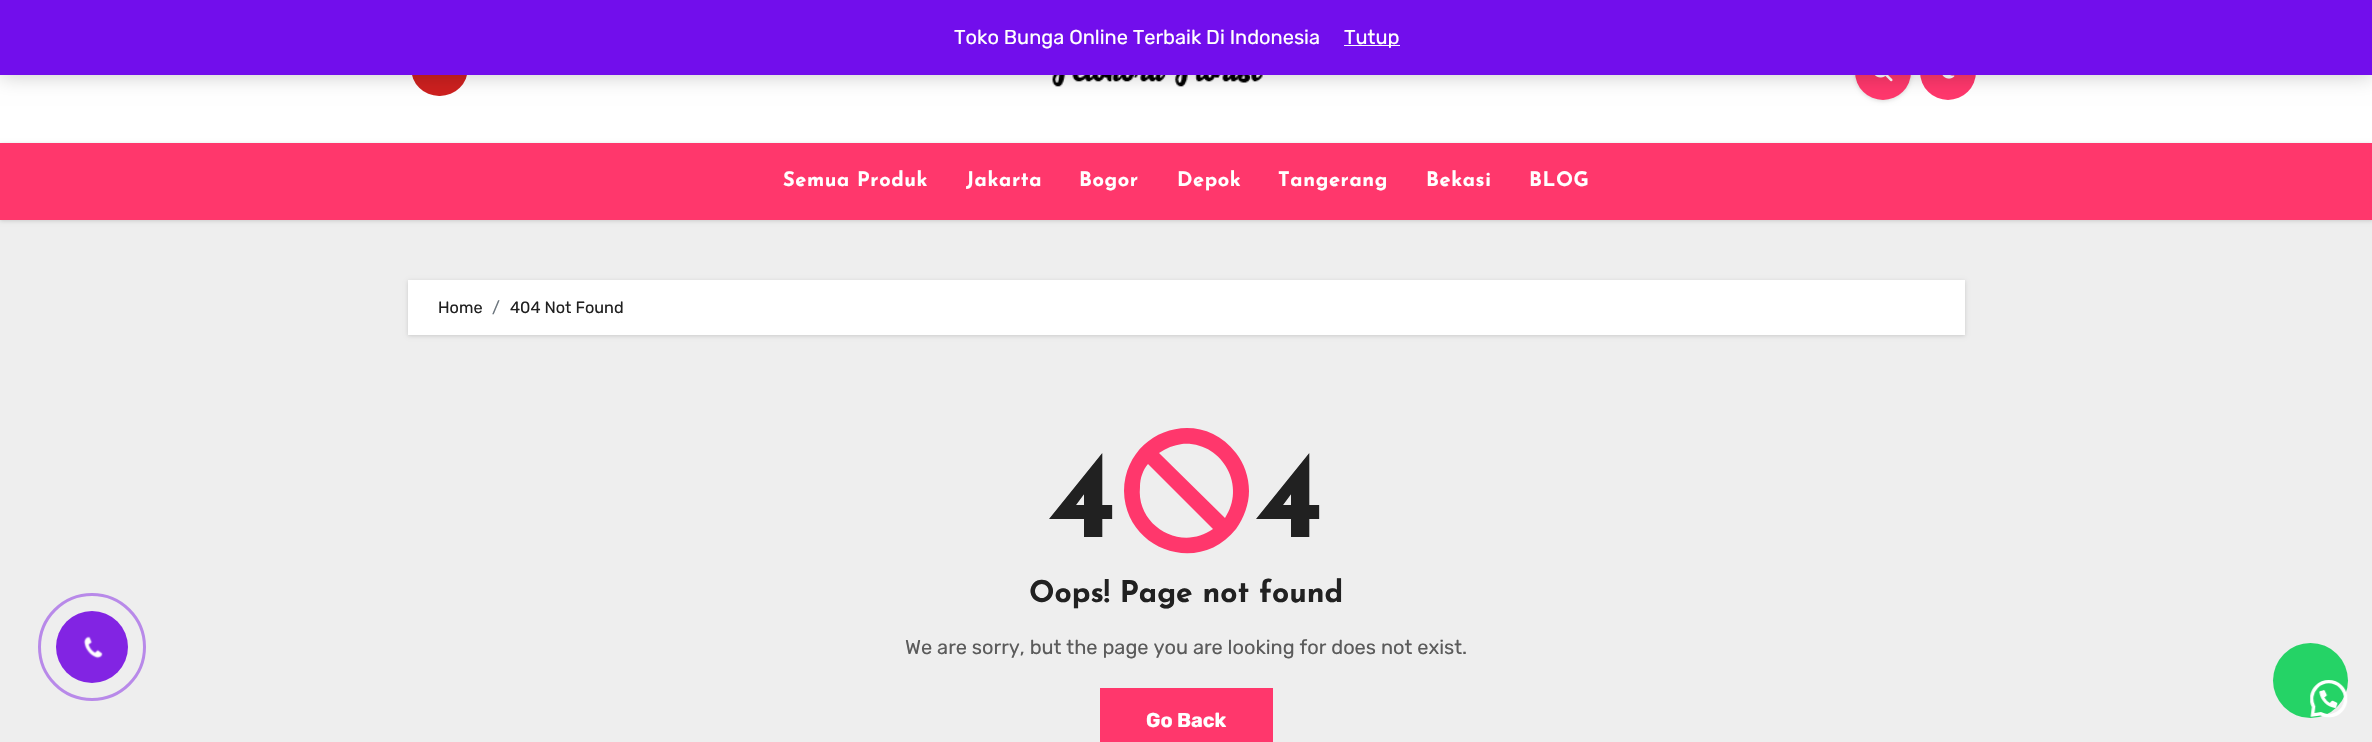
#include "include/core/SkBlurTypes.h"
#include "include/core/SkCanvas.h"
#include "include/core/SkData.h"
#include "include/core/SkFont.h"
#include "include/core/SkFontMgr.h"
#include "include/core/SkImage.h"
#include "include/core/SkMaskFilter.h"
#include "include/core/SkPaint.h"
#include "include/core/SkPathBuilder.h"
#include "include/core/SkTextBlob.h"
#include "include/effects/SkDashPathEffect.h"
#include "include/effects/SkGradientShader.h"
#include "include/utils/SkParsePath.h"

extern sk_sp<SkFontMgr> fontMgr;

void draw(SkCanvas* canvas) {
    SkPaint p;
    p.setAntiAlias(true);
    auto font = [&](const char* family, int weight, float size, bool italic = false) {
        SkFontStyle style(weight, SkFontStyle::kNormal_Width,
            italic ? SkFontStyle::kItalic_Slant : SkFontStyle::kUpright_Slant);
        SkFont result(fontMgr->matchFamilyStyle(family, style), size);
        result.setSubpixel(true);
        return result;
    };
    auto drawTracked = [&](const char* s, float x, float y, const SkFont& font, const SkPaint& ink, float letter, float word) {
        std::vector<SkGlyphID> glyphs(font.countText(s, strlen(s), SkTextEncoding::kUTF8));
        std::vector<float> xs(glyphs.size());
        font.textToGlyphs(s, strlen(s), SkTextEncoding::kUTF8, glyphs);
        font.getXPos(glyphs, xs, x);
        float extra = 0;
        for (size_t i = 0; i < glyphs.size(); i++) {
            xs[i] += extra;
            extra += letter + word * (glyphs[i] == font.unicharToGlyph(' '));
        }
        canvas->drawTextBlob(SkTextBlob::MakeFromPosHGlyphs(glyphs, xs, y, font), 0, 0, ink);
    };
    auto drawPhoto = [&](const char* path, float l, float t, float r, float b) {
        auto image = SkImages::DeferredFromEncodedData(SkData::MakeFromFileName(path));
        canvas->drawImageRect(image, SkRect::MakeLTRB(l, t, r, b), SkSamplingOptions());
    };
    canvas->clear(0xFFEEEEEE);
    p.setColor(0xFFFFFFFF);
    canvas->drawRect(SkRect::MakeLTRB(0, 75, 2372, 143), p);
    p.setColor(0xFFCD201F);
    canvas->drawRoundRect(SkRect::MakeLTRB(411, 40, 468, 96), 28, 28, p);
    drawPhoto("media/2.png", 1052, 75, 1263, 87);
    p.setColor(0x26000000);
    p.setMaskFilter(SkMaskFilter::MakeBlur(kNormal_SkBlurStyle, 2));
    canvas->drawRoundRect(SkRect::MakeLTRB(1855, 45, 1911, 101), 28, 28, p);
    p.setMaskFilter(nullptr);
    p.setColor(0xFFFF376C);
    canvas->drawCircle(1883, 72, 28, p);
    drawPhoto("media/3.png", 1874, 75, 1893, 82);
    canvas->drawCircle(1948, 72, 28, p);
    drawPhoto("media/4.png", 1942, 75, 1955, 79);
    p.setColor(0x33000000);
    p.setMaskFilter(SkMaskFilter::MakeBlur(kNormal_SkBlurStyle, 10));
    canvas->drawRect(SkRect::MakeLTRB(0, 1, 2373, 76), p);
    p.setMaskFilter(nullptr);
    p.setColor(0xFF720EEC);
    canvas->drawRect(SkRect::MakeLTRB(0, 0, 2372, 75), p);
    auto font1 = font("Rubik", 300, 20);
    p.setColor(0xFFFFFFFF);
    canvas->drawString("Toko Bunga Online Terbaik Di Indonesia", 954, 44, font1, p);
    p.setColor(0xFFFCFBFE);
    canvas->drawRect(SkRect::MakeLTRB(1344, 45, 1400, 46), p);
    p.setColor(0xFFFFFFFF);
    canvas->drawString("Tutup", 1344, 44, font1, p);
    p.setStyle(SkPaint::kStroke_Style);
    p.setStrokeWidth(3);
    p.setColor(0xFFB889E9);
    canvas->drawCircle(92, 647, 52.5f, p);
    p.setStyle(SkPaint::kFill_Style);
    p.setColor(0xFF8224E3);
    canvas->drawCircle(92, 647, 36, p);
    drawPhoto("media/1.png", 83, 636, 103, 659);
    p.setColor(0x26000000);
    p.setMaskFilter(SkMaskFilter::MakeBlur(kNormal_SkBlurStyle, 2));
    canvas->drawRect(SkRect::MakeLTRB(0, 144, 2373, 221), p);
    p.setMaskFilter(nullptr);
    p.setColor(0xFFFF376C);
    canvas->drawRect(SkRect::MakeLTRB(0, 143, 2372, 220), p);
    auto font2 = font("Josefin Sans", 700, 20);
    p.setColor(0xFFFFFFFF);
    {
        const struct { const char* s; float x, y; } items[] = {
            {"Semua Produk", 783, 186},
            {"Jakarta", 966, 186},
            {"Bogor", 1079, 186},
            {"Depok", 1177, 186},
            {"Tangerang", 1278, 186},
            {"Bekasi", 1426, 186},
            {"BLOG", 1529, 186},
        };
        for (auto [s, x, y] : items) {
            drawTracked(s, x, y, font2, p, 0.6f, 0);
        }
    }
    p.setColor(0x26000000);
    p.setMaskFilter(SkMaskFilter::MakeBlur(kNormal_SkBlurStyle, 2));
    canvas->drawRect(SkRect::MakeLTRB(408, 281, 1965, 336), p);
    p.setMaskFilter(nullptr);
    p.setColor(0xFFFFFFFF);
    canvas->drawRect(SkRect::MakeLTRB(408, 280, 1965, 335), p);
    auto font3 = font("Rubik", 300, 16.25f);
    p.setColor(0xFF212121);
    canvas->drawString("Home", 438, 313, font3, p);
    p.setColor(0xFF6C757D);
    canvas->drawString("/", 492, 313, font3, p);
    p.setColor(0xFF212121);
    canvas->drawString("404 Not Found", 510, 313, font3, p);
    auto font4 = font("Josefin Sans", 700, 125);
    canvas->drawString("4", 1048, 537, font4, p);
    p.setColor(0xFFFF376C);
    canvas->drawPath(SkPathBuilder().moveTo(1213, 529).lineTo(1148, 464).cubicTo(1143, 470, 1140, 478, 1140, 487).cubicTo(1136, 526, 1181, 552, 1213, 529).close().moveTo(1225, 518).cubicTo(1247, 486, 1222, 441, 1182, 444).cubicTo(1174, 445, 1166, 448, 1159, 453).close().moveTo(1124, 491).cubicTo(1125, 431, 1199, 405, 1236, 453).cubicTo(1244, 463, 1249, 477, 1249, 491).cubicTo(1249, 504, 1244, 518, 1236, 529).cubicTo(1199, 576, 1125, 550, 1124, 491).close().detach(), p);
    p.setColor(0xFF212121);
    canvas->drawString("4", 1255, 537, font4, p);
    auto font5 = font("Josefin Sans", 700, 30);
    canvas->drawString("Oops! Page not found", 1029, 602, font5, p);
    p.setColor(0xFF5B5B5B);
    canvas->drawString("We are sorry, but the page you are looking for does not exist.", 905, 654, font1, p);
    p.setColor(0xFFFF376C);
    canvas->drawRect(SkRect::MakeLTRB(1100, 688, 1273, 742), p);
    auto font6 = font("Rubik", 700, 20);
    p.setColor(0xFFFFFFFF);
    canvas->drawString("Go Back", 1146, 727, font6, p);
    p.setColor(0xFF25D366);
    canvas->drawCircle(2310.5f, 680.5f, 37.5f, p);
    drawPhoto("media/5.png", 2310, 680, 2348, 718);
}
